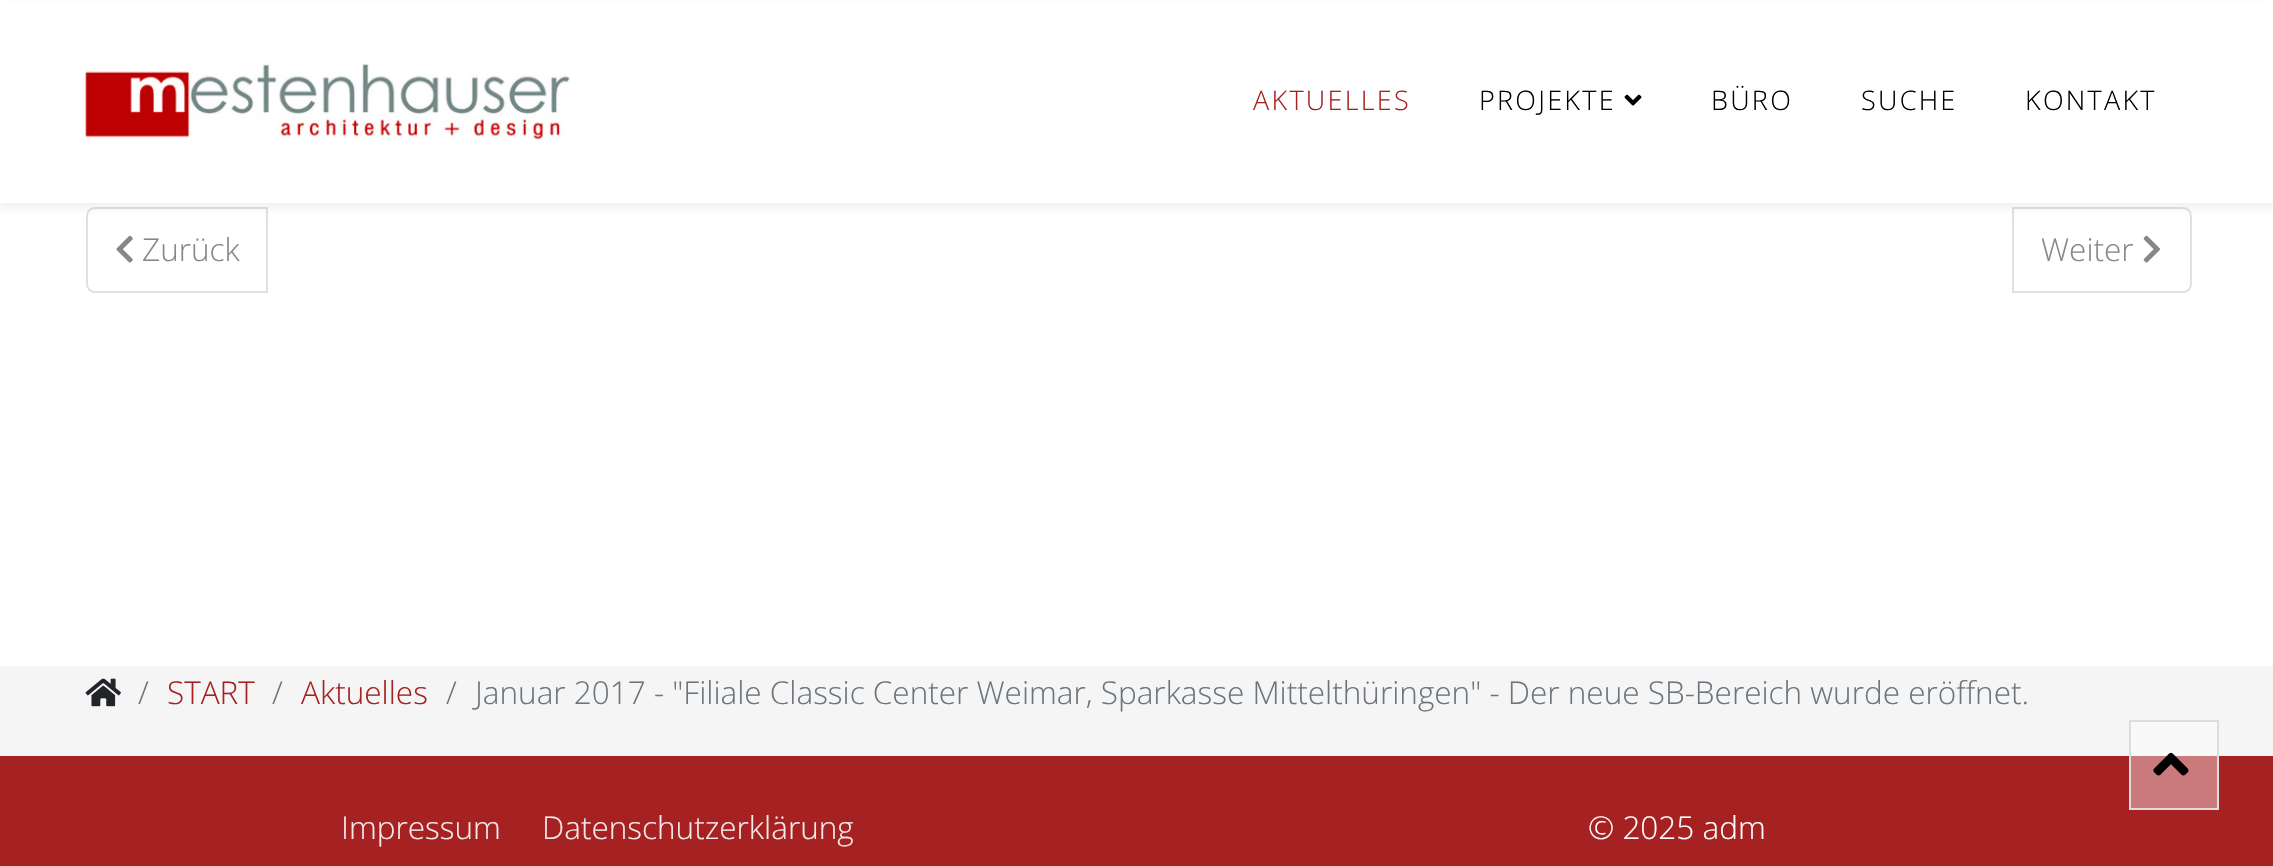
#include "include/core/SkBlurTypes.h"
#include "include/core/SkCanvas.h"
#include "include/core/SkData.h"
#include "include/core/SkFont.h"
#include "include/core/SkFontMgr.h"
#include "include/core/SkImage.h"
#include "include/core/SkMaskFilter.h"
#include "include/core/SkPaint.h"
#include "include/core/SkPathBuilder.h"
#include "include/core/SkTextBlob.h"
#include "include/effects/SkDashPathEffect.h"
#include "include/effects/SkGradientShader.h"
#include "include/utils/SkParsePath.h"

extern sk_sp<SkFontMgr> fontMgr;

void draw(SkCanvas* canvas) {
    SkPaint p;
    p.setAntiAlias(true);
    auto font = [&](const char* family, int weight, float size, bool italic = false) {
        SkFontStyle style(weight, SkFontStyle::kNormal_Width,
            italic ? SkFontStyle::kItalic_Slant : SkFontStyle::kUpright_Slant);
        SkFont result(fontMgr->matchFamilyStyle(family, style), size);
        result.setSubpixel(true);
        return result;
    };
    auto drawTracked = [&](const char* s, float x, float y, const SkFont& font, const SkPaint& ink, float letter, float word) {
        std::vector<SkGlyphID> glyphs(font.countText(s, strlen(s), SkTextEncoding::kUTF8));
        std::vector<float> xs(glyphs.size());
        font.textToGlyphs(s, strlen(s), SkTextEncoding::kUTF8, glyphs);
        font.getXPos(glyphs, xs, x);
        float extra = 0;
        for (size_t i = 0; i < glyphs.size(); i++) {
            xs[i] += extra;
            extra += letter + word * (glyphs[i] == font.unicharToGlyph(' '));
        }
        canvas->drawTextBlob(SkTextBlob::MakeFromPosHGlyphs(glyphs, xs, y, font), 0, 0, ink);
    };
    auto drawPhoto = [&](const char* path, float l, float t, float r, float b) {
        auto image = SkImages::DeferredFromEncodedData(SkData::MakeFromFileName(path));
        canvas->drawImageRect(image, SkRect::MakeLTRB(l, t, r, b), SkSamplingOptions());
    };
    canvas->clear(0xFFFFFFFF);
    p.setStyle(SkPaint::kStroke_Style);
    p.setStrokeWidth(2);
    p.setColor(0xFFDEE2E6);
    canvas->drawPath(SkPathBuilder().moveTo(95, 208).lineTo(267, 208).lineTo(267, 292).lineTo(95, 292).cubicTo(90.5f, 292, 87, 288.5f, 87, 284).lineTo(87, 216).cubicTo(87, 211.5f, 90.5f, 208, 95, 208).close().detach(), p);
    canvas->drawPath(SkPathBuilder().moveTo(2013, 208).lineTo(2183, 208).cubicTo(2187.5f, 208, 2191, 211.5f, 2191, 216).lineTo(2191, 284).cubicTo(2191, 288.5f, 2187.5f, 292, 2183, 292).lineTo(2013, 292).close().detach(), p);
    p.setStyle(SkPaint::kFill_Style);
    p.setColor(0x0D000000);
    p.setMaskFilter(SkMaskFilter::MakeBlur(kNormal_SkBlurStyle, 3.5f));
    canvas->drawRect(SkRect::MakeLTRB(0, 7, 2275, 209), p);
    p.setMaskFilter(nullptr);
    p.setColor(0xFFFFFFFF);
    canvas->drawRect(SkRect::MakeLTRB(0, 4, 2273, 203), p);
    drawPhoto("media/1.png", 85, 62, 570, 140);
    auto font1 = font("Open Sans", 300, 27);
    p.setColor(0xFFA62121);
    drawTracked("AKTUELLES", 1253, 110, font1, p, 2.25f, 0);
    p.setColor(0xFF000000);
    drawTracked("PROJEKTE", 1479, 110, font1, p, 2.25f, 0);
    drawPhoto("media/2.png", 1624, 94, 1642, 106);
    {
        const struct { const char* s; float x, y; } items[] = {
            {"BÜRO", 1711, 110},
            {"SUCHE", 1861, 110},
            {"KONTAKT", 2025, 110},
        };
        for (auto [s, x, y] : items) {
            drawTracked(s, x, y, font1, p, 2.25f, 0);
        }
    }
    drawPhoto("media/3.png", 116, 235, 133, 263);
    auto font2 = font("Open Sans", 300, 31.5f);
    p.setColor(0xFF878787);
    canvas->drawString("Zurück", 142, 261, font2, p);
    canvas->drawString("Weiter", 2041, 261, font2, p);
    drawPhoto("media/4.png", 2143, 235, 2160, 263);
    p.setColor(0xFFF5F5F5);
    canvas->drawRect(SkRect::MakeLTRB(0, 666, 2273, 756), p);
    p.setColor(0xFFF9F9F9);
    canvas->drawRect(SkRect::MakeLTRB(2131, 722, 2217, 756), p);
    drawPhoto("media/5.png", 85, 678, 121, 707);
    p.setColor(0xFF6C757D);
    canvas->drawString("/", 138, 704, font2, p);
    p.setColor(0xFFA62121);
    canvas->drawString("START", 167, 704, font2, p);
    p.setColor(0xFF6C757D);
    canvas->drawString("/", 272, 704, font2, p);
    p.setColor(0xFFA62121);
    canvas->drawString("Aktuelles", 301, 704, font2, p);
    p.setColor(0xFF6C757D);
    canvas->drawString("/", 446, 704, font2, p);
    canvas->drawString("Januar 2017 - \"Filiale Classic Center Weimar, Sparkasse Mittelthüringen\" - Der neue SB-Bereich wurde eröffnet.", 475, 704, font2, p);
    p.setColor(0xFFA62121);
    canvas->drawRect(SkRect::MakeLTRB(0, 756, 2273, 866), p);
    p.setColor(0xFFCA7A7A);
    canvas->drawRect(SkRect::MakeLTRB(2131, 756, 2217, 808), p);
    p.setColor(0xFFF6E9E9);
    canvas->drawString("Impressum", 341, 839, font2, p);
    canvas->drawString("Datenschutzerklärung", 542, 839, font2, p);
    p.setColor(0xFFFFFFFF);
    canvas->drawString("© 2025 adm", 1588, 839, font2, p);
    p.setStyle(SkPaint::kStroke_Style);
    p.setColor(0xFFDDDDDD);
    canvas->drawRect(SkRect::MakeLTRB(2130, 721, 2218, 809), p);
    drawPhoto("media/6.png", 2153, 752, 2189, 776);
}
